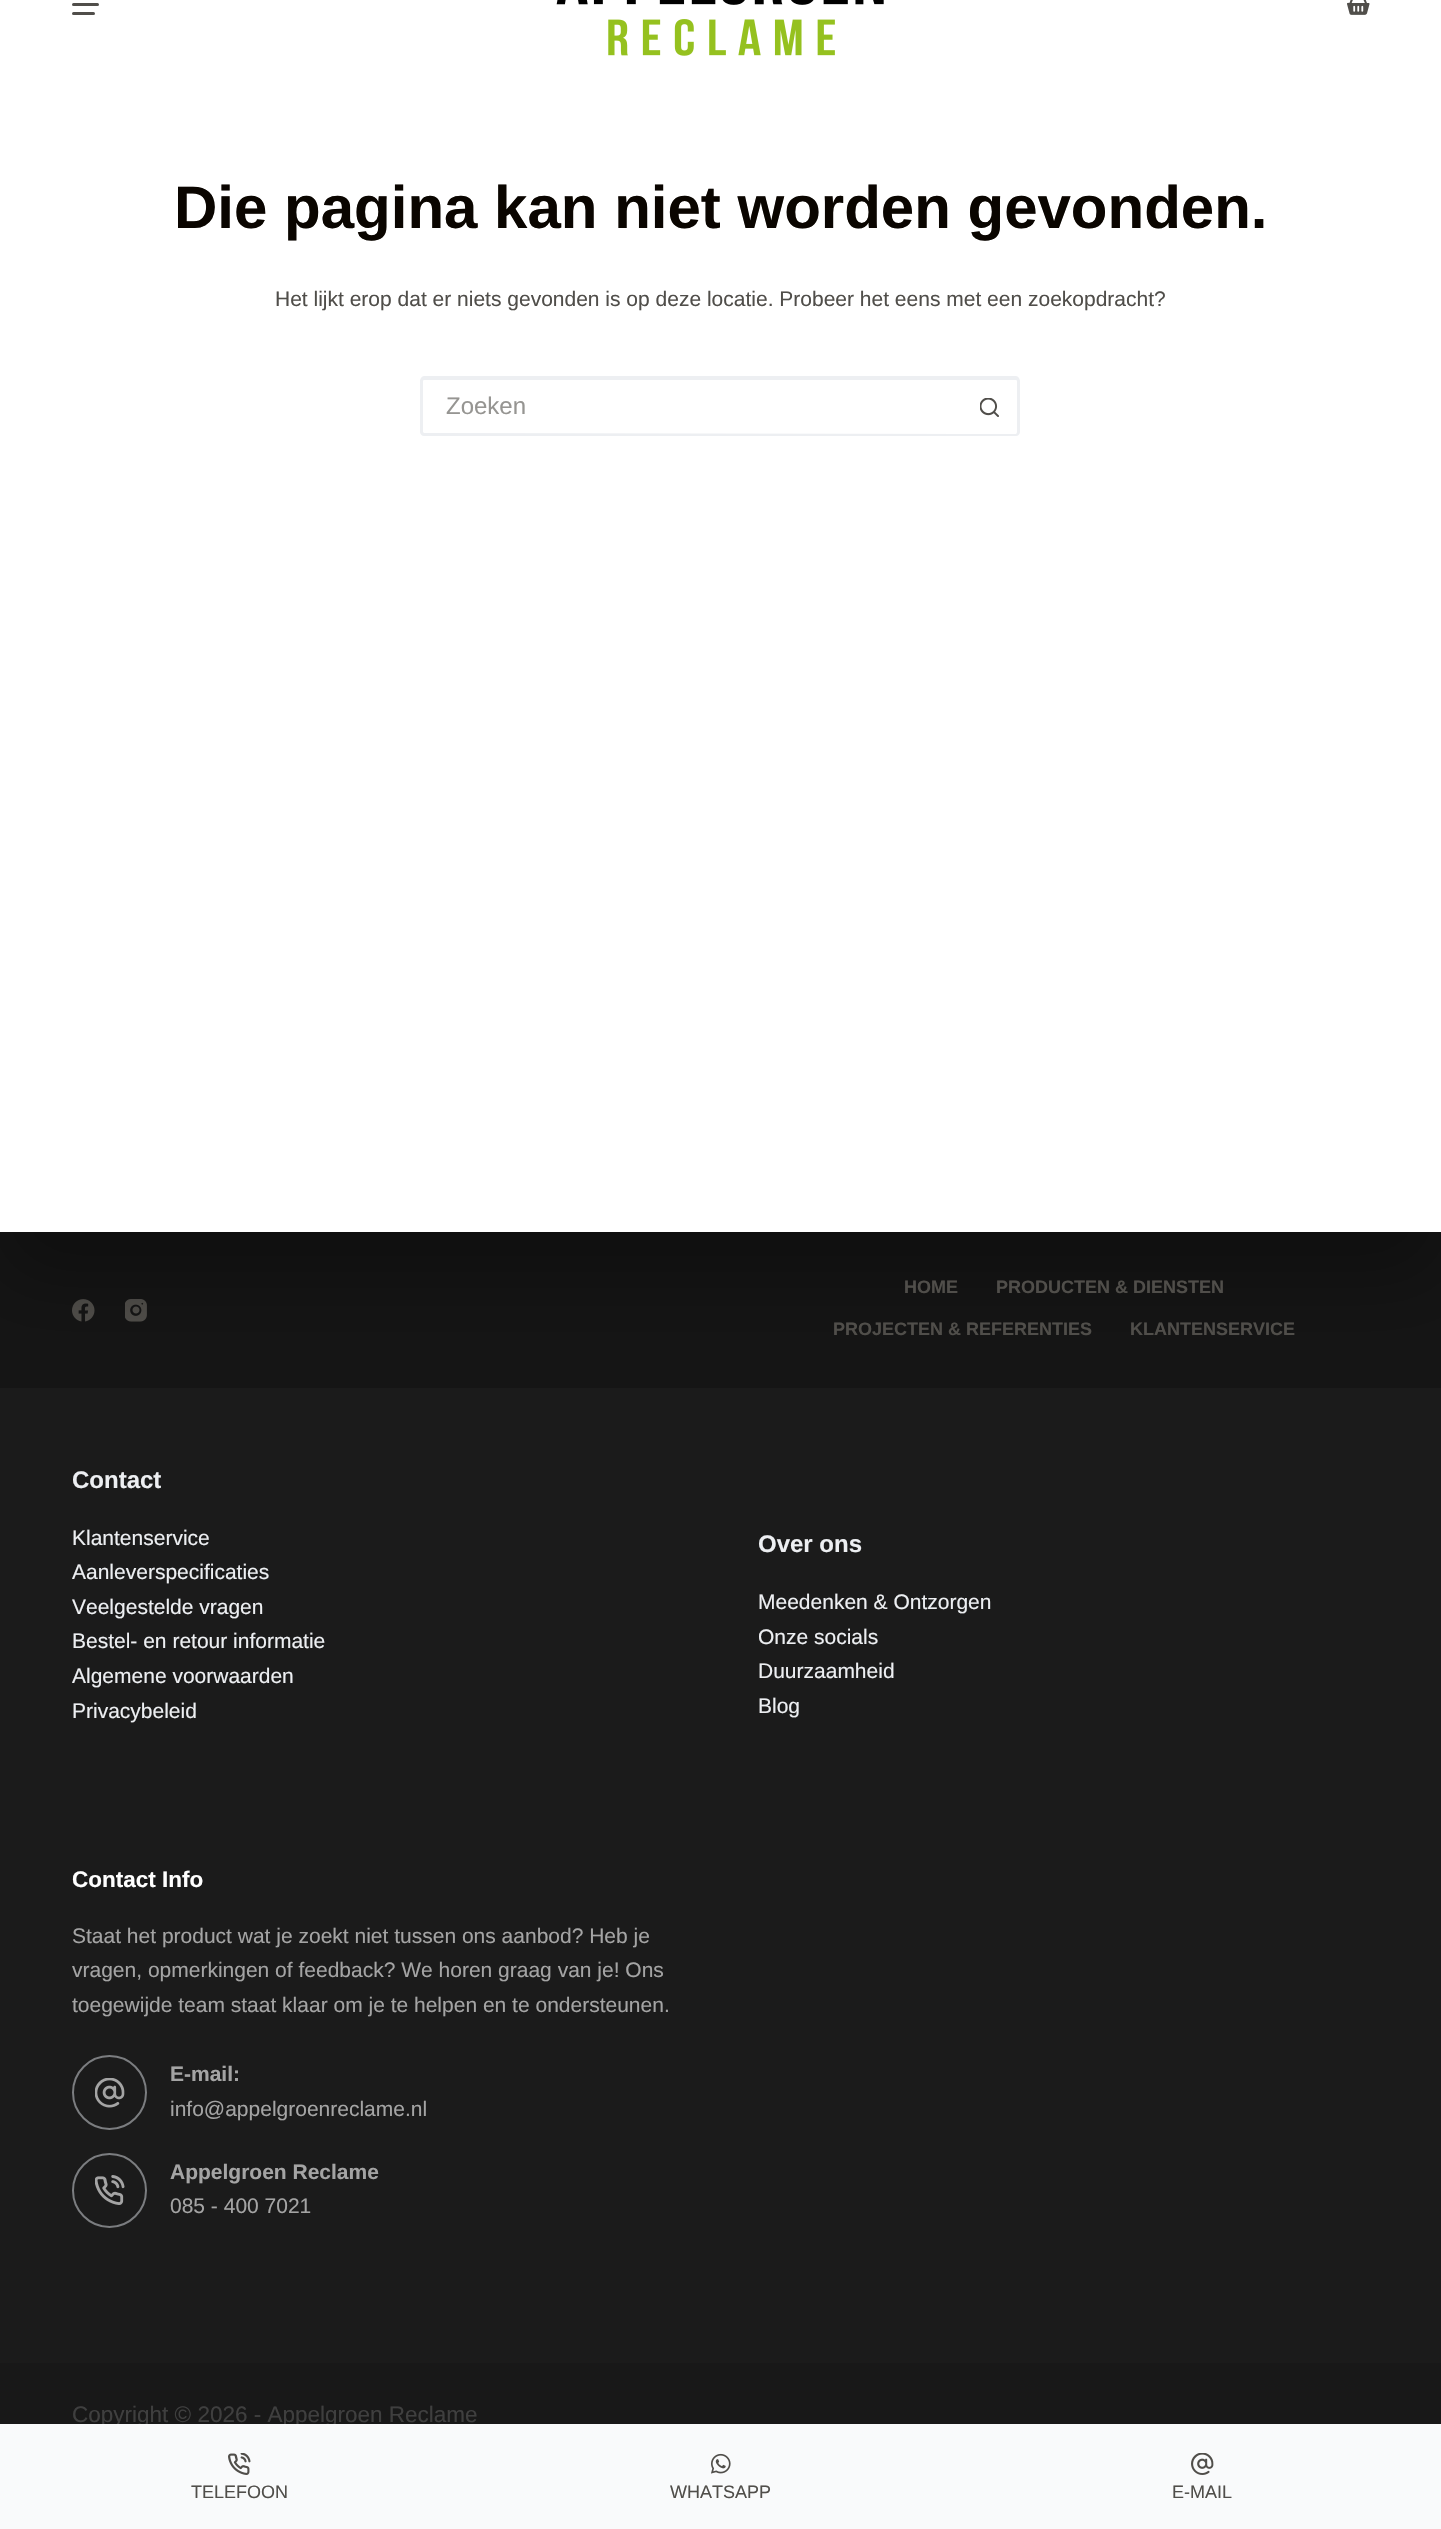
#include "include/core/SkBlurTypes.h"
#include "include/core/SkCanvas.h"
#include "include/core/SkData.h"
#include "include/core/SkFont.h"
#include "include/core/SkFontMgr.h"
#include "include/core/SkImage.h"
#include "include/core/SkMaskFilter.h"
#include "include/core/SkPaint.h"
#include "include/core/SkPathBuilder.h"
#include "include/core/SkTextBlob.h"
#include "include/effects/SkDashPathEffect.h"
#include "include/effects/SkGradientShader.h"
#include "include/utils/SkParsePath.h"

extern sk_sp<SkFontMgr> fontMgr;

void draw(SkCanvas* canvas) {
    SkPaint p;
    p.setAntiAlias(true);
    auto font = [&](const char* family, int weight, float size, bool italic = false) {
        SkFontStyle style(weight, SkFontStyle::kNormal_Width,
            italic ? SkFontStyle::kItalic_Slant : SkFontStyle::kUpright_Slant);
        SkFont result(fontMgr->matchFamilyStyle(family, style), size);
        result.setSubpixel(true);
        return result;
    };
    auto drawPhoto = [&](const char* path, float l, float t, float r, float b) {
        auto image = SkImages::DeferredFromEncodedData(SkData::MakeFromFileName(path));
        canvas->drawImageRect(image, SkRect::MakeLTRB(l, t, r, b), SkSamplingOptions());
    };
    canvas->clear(0xFF1B1B1B);
    p.setColor(0xFF151515);
    canvas->drawRect(SkRect::MakeLTRB(0, 1232, 1441, 1388), p);
    drawPhoto("media/4.png", 72, 1299, 95, 1322);
    drawPhoto("media/5.png", 125, 1299, 147, 1322);
    p.setColor(0x4D000000);
    p.setMaskFilter(SkMaskFilter::MakeBlur(kNormal_SkBlurStyle, 37.5f));
    canvas->drawRect(SkRect::MakeLTRB(0, 117, 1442, 1277), p);
    p.setMaskFilter(nullptr);
    p.setColor(0xFFFFFFFF);
    canvas->drawRect(SkRect::MakeLTRB(0, 0, 1441, 1232), p);
    p.setColor(0xFF504E4A);
    canvas->drawRoundRect(SkRect::MakeLTRB(72, 3, 99, 6), 1.5f, 1.5f, p);
    canvas->drawRoundRect(SkRect::MakeLTRB(72, 12, 95, 15), 1.5f, 1.5f, p);
    drawPhoto("media/1.png", 556, 0, 884, 56);
    drawPhoto("media/2.png", 1347, 0, 1370, 15);
    auto font1 = font("Liberation Sans", 700, 60);
    p.setColor(0xFF0A0500);
    canvas->drawString("Die pagina kan niet worden gevonden.", 174, 228, font1, p);
    auto font2 = font("Liberation Sans", 400, 21);
    p.setColor(0xFF504E4A);
    canvas->drawString("Het lijkt erop dat er niets gevonden is op deze locatie. Probeer het eens met een zoekopdracht?", 275, 306, font2, p);
    p.setColor(0xFFEDEFF2);
    canvas->drawPath(SkPathBuilder(SkPathFillType::kEvenOdd).moveTo(424, 376).lineTo(960, 376).lineTo(960, 436).lineTo(424, 436).cubicTo(422, 436, 420, 434, 420, 432).lineTo(420, 381).cubicTo(420, 379, 422, 376, 424, 376).close().moveTo(424, 380).lineTo(960, 380).lineTo(960, 434).lineTo(424, 433).lineTo(423, 432).lineTo(423, 381).cubicTo(423, 380, 424, 380, 424, 380).close().detach(), p);
    auto font3 = font("Liberation Sans", 400, 24);
    p.setColor(0xFF969592);
    canvas->drawString("Zoeken", 446, 414, font3, p);
    p.setColor(0xFFEDEFF2);
    canvas->drawPath(SkPathBuilder(SkPathFillType::kEvenOdd).moveTo(960, 376).lineTo(1016, 376).cubicTo(1018, 376, 1020, 379, 1020, 381).lineTo(1020, 432).cubicTo(1020, 434, 1018, 436, 1016, 436).lineTo(960, 436).close().moveTo(960, 380).lineTo(1016, 380).cubicTo(1016, 380, 1017, 380, 1017, 381).lineTo(1017, 432).cubicTo(1017, 433, 1016, 434, 1016, 434).lineTo(960, 434).close().detach(), p);
    drawPhoto("media/3.png", 980, 398, 999, 417);
    auto font4 = font("Liberation Sans", 700, 18);
    p.setColor(0xFF504E4A);
    {
        const struct { const char* s; float x, y; } items[] = {
            {"HOME", 904, 1293},
            {"PRODUCTEN & DIENSTEN", 996, 1293},
            {"PROJECTEN & REFERENTIES", 833, 1335},
            {"KLANTENSERVICE", 1130, 1335},
        };
        for (auto [s, x, y] : items) {
            canvas->drawString(s, x, y, font4, p);
        }
    }
    auto font5 = font("Liberation Sans", 700, 24);
    p.setColor(0xFFEDEFF2);
    canvas->drawString("Contact", 72, 1488, font5, p);
    {
        const struct { const char* s; float x, y; } items[] = {
            {"Klantenservice", 72, 1545},
            {"Aanleverspecificaties", 72, 1579},
            {"Veelgestelde vragen", 72, 1614},
            {"Bestel- en retour informatie", 72, 1648},
            {"Algemene voorwaarden", 72, 1683},
            {"Privacybeleid", 72, 1718},
        };
        for (auto [s, x, y] : items) {
            canvas->drawString(s, x, y, font2, p);
        }
    }
    canvas->drawString("Over ons", 758, 1552, font5, p);
    {
        const struct { const char* s; float x, y; } items[] = {
            {"Meedenken & Ontzorgen", 758, 1609},
            {"Onze socials", 758, 1644},
            {"Duurzaamheid", 758, 1678},
            {"Blog", 758, 1713},
        };
        for (auto [s, x, y] : items) {
            canvas->drawString(s, x, y, font2, p);
        }
    }
    auto font6 = font("Liberation Sans", 700, 22.5f);
    p.setColor(0xFFFFFFFF);
    canvas->drawString("Contact Info", 72, 1887, font6, p);
    p.setColor(0xFFA4A4A4);
    {
        const struct { const char* s; float x, y; } items[] = {
            {"Staat het product wat je zoekt niet tussen ons aanbod? Heb je", 72, 1943},
            {"vragen, opmerkingen of feedback? We horen graag van je! Ons", 72, 1977},
            {"toegewijde team staat klaar om je te helpen en te ondersteunen.", 72, 2012},
        };
        for (auto [s, x, y] : items) {
            canvas->drawString(s, x, y, font2, p);
        }
    }
    p.setStyle(SkPaint::kStroke_Style);
    p.setStrokeWidth(2);
    p.setColor(0xFF7B7D80);
    canvas->drawCircle(109.5f, 2092.5f, 36.5f, p);
    drawPhoto("media/6.png", 95, 2078, 125, 2108);
    auto font7 = font("Liberation Sans", 700, 21);
    p.setStyle(SkPaint::kFill_Style);
    p.setColor(0xFFA4A4A4);
    canvas->drawString("E-mail:", 170, 2081, font7, p);
    canvas->drawString("info@appelgroenreclame.nl", 170, 2116, font2, p);
    p.setStyle(SkPaint::kStroke_Style);
    p.setColor(0xFF7B7D80);
    canvas->drawCircle(109.5f, 2190.5f, 36.5f, p);
    drawPhoto("media/7.png", 95, 2175, 125, 2205);
    p.setStyle(SkPaint::kFill_Style);
    p.setColor(0xFFA4A4A4);
    canvas->drawString("Appelgroen Reclame", 170, 2179, font7, p);
    canvas->drawString("085 - 400 7021", 170, 2213, font2, p);
    p.setColor(0xFF181818);
    canvas->drawRect(SkRect::MakeLTRB(0, 2363, 1441, 2424), p);
    auto font8 = font("Liberation Sans", 400, 22.5f);
    p.setColor(0xFF3F3F3F);
    canvas->drawString("Copyright © 2026 - Appelgroen Reclame", 72, 2422, font8, p);
    p.setColor(0xFFF9FAFB);
    canvas->drawRect(SkRect::MakeLTRB(0, 2424, 1441, 2529), p);
    drawPhoto("media/8.png", 228, 2453, 251, 2475);
    auto font9 = font("Liberation Sans", 400, 18);
    p.setColor(0xFF504E4A);
    canvas->drawString("TELEFOON", 191, 2498, font9, p);
    drawPhoto("media/9.png", 711, 2453, 731, 2474);
    canvas->drawString("WHATSAPP", 670, 2498, font9, p);
    drawPhoto("media/10.png", 1191, 2453, 1214, 2475);
    canvas->drawString("E-MAIL", 1172, 2498, font9, p);
}
